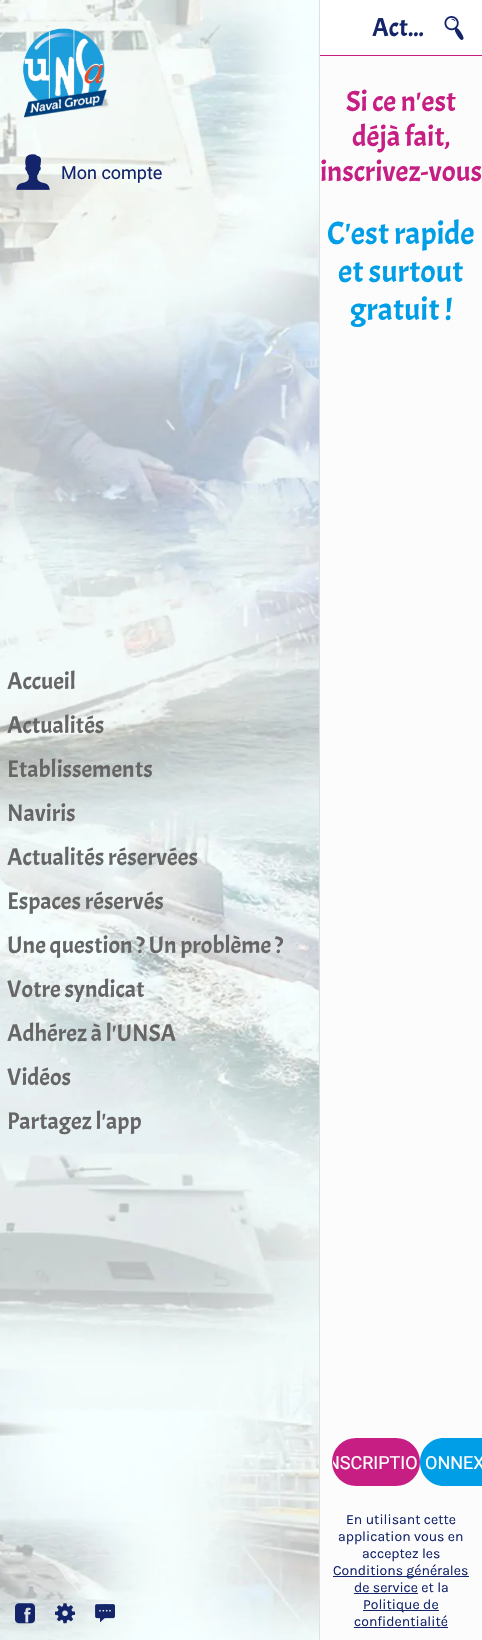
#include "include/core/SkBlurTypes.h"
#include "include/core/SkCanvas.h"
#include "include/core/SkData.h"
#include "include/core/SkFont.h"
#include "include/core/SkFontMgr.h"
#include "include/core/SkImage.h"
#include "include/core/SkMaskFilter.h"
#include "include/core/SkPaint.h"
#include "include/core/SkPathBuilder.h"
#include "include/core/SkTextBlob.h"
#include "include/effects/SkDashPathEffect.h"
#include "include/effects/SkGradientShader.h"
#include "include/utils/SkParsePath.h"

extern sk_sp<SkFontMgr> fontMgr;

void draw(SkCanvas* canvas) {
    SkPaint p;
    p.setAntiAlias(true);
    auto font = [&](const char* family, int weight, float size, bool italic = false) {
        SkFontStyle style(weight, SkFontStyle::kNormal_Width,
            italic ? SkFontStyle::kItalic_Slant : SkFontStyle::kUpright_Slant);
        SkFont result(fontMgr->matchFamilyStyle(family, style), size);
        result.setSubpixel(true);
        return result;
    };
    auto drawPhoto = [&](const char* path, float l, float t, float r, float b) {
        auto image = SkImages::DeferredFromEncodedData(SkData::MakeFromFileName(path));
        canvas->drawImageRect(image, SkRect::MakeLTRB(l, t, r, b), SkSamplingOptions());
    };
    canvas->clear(0xFFFFFFFF);
    drawPhoto("media/1.png", 318, 0, 319, 1640);
    p.setColor(0xFFE0E0E0);
    canvas->drawRect(SkRect::MakeLTRB(319, 0, 320, 1640), p);
    drawPhoto("media/2.png", 0, 0, 319, 1640);
    drawPhoto("media/3.png", 23, 28, 107, 118);
    drawPhoto("media/4.png", 16, 154, 50, 190);
    auto font1 = font("Roboto", 400, 18);
    p.setColor(0xFF13246A);
    canvas->drawString("Mon compte", 61, 179, font1, p);
    auto font2 = font("Acme", 400, 24);
    p.setColor(0xFF666666);
    {
        const struct { const char* s; float x, y; } items[] = {
            {"Accueil", 7, 689},
            {"Actualités", 7, 733},
            {"Etablissements", 7, 777},
            {"Naviris", 7, 821},
            {"Actualités réservées", 7, 865},
            {"Espaces réservés", 7, 909},
        };
        for (auto [s, x, y] : items) {
            canvas->drawString(s, x, y, font2, p);
        }
    }
    canvas->save();
    canvas->clipRect(SkRect::MakeLTRB(7, 930, 283, 960));
    canvas->drawString("Une question ? Un problème ?", 7, 953, font2, p);
    canvas->restore();
    {
        const struct { const char* s; float x, y; } items[] = {
            {"Votre syndicat", 7, 997},
            {"Adhérez à l'UNSA", 7, 1041},
            {"Vidéos", 7, 1085},
            {"Partagez l'app", 7, 1129},
        };
        for (auto [s, x, y] : items) {
            canvas->drawString(s, x, y, font2, p);
        }
    }
    drawPhoto("media/5.png", 15, 1603, 35, 1624);
    drawPhoto("media/6.png", 55, 1603, 75, 1624);
    drawPhoto("media/7.png", 95, 1604, 115, 1623);
    p.setColor(0xFFFCFCFC);
    canvas->drawRect(SkRect::MakeLTRB(320, 56, 482, 1640), p);
    p.setColor(0xFFC71E83);
    canvas->drawRect(SkRect::MakeLTRB(320, 55, 482, 56), p);
    auto font3 = font("Acme", 400, 26);
    p.setColor(0xFF13246A);
    canvas->drawString("Act...", 372, 36, font3, p);
    drawPhoto("media/8.png", 444, 16, 464, 40);
    auto font4 = font("Acme", 400, 29);
    p.setColor(0xFFC71E83);
    {
        const struct { const char* s; float x, y; } items[] = {
            {"Si ce n'est", 346, 111},
            {"déjà fait,", 352, 146},
            {"inscrivez-vous", 320, 181},
        };
        for (auto [s, x, y] : items) {
            canvas->drawString(s, x, y, font4, p);
        }
    }
    auto font5 = font("Acme", 400, 32);
    p.setColor(0xFF009EE7);
    {
        const struct { const char* s; float x, y; } items[] = {
            {"C'est rapide", 327, 244},
            {"et surtout", 338, 282},
            {"gratuit !", 350, 320},
        };
        for (auto [s, x, y] : items) {
            canvas->drawString(s, x, y, font5, p);
        }
    }
    p.setColor(0xFFC71E83);
    canvas->drawRoundRect(SkRect::MakeLTRB(332, 1438, 420, 1486), 24, 24, p);
    canvas->save();
    canvas->clipPath(SkPathBuilder().moveTo(356, 1439).lineTo(396, 1439).cubicTo(408.5f, 1439, 419, 1449.5f, 419, 1462).cubicTo(419, 1474.5f, 408.5f, 1485, 396, 1485).lineTo(356, 1485).cubicTo(343.5f, 1485, 333, 1474.5f, 333, 1462).cubicTo(333, 1449.5f, 343.5f, 1439, 356, 1439).close().detach(), true);
    p.setColor(0xFFFFFFFF);
    canvas->drawString("NSCRIPTIO", 327, 1469, font1, p);
    canvas->restore();
    p.setColor(0xFF009EE7);
    canvas->drawPath(SkPathBuilder().moveTo(444, 1438).lineTo(482, 1438).lineTo(482, 1486).lineTo(444, 1486).cubicTo(430.5f, 1486, 420, 1475.5f, 420, 1462).cubicTo(420, 1448.5f, 430.5f, 1438, 444, 1438).close().detach(), p);
    p.setColor(0xFFFFFFFF);
    canvas->drawString("ONNEX", 425, 1469, font1, p);
    auto font6 = font("Karla", 400, 14);
    p.setColor(0xFF13246A);
    {
        const struct { const char* s; float x, y; } items[] = {
            {"En utilisant cette", 346, 1524},
            {"application vous en", 338, 1541},
            {"acceptez les", 362, 1558},
        };
        for (auto [s, x, y] : items) {
            canvas->drawString(s, x, y, font6, p);
        }
    }
    canvas->drawRect(SkRect::MakeLTRB(333, 1576, 469, 1577), p);
    canvas->drawString("Conditions générales", 333, 1575, font6, p);
    canvas->drawString("de service et la", 354, 1592, font6, p);
    canvas->drawRect(SkRect::MakeLTRB(354, 1593, 418, 1594), p);
    canvas->drawRect(SkRect::MakeLTRB(363, 1610, 439, 1611), p);
    canvas->drawString("Politique de", 363, 1609, font6, p);
    canvas->drawString("confidentialité", 354, 1626, font6, p);
    canvas->drawRect(SkRect::MakeLTRB(354, 1627, 448, 1628), p);
}
